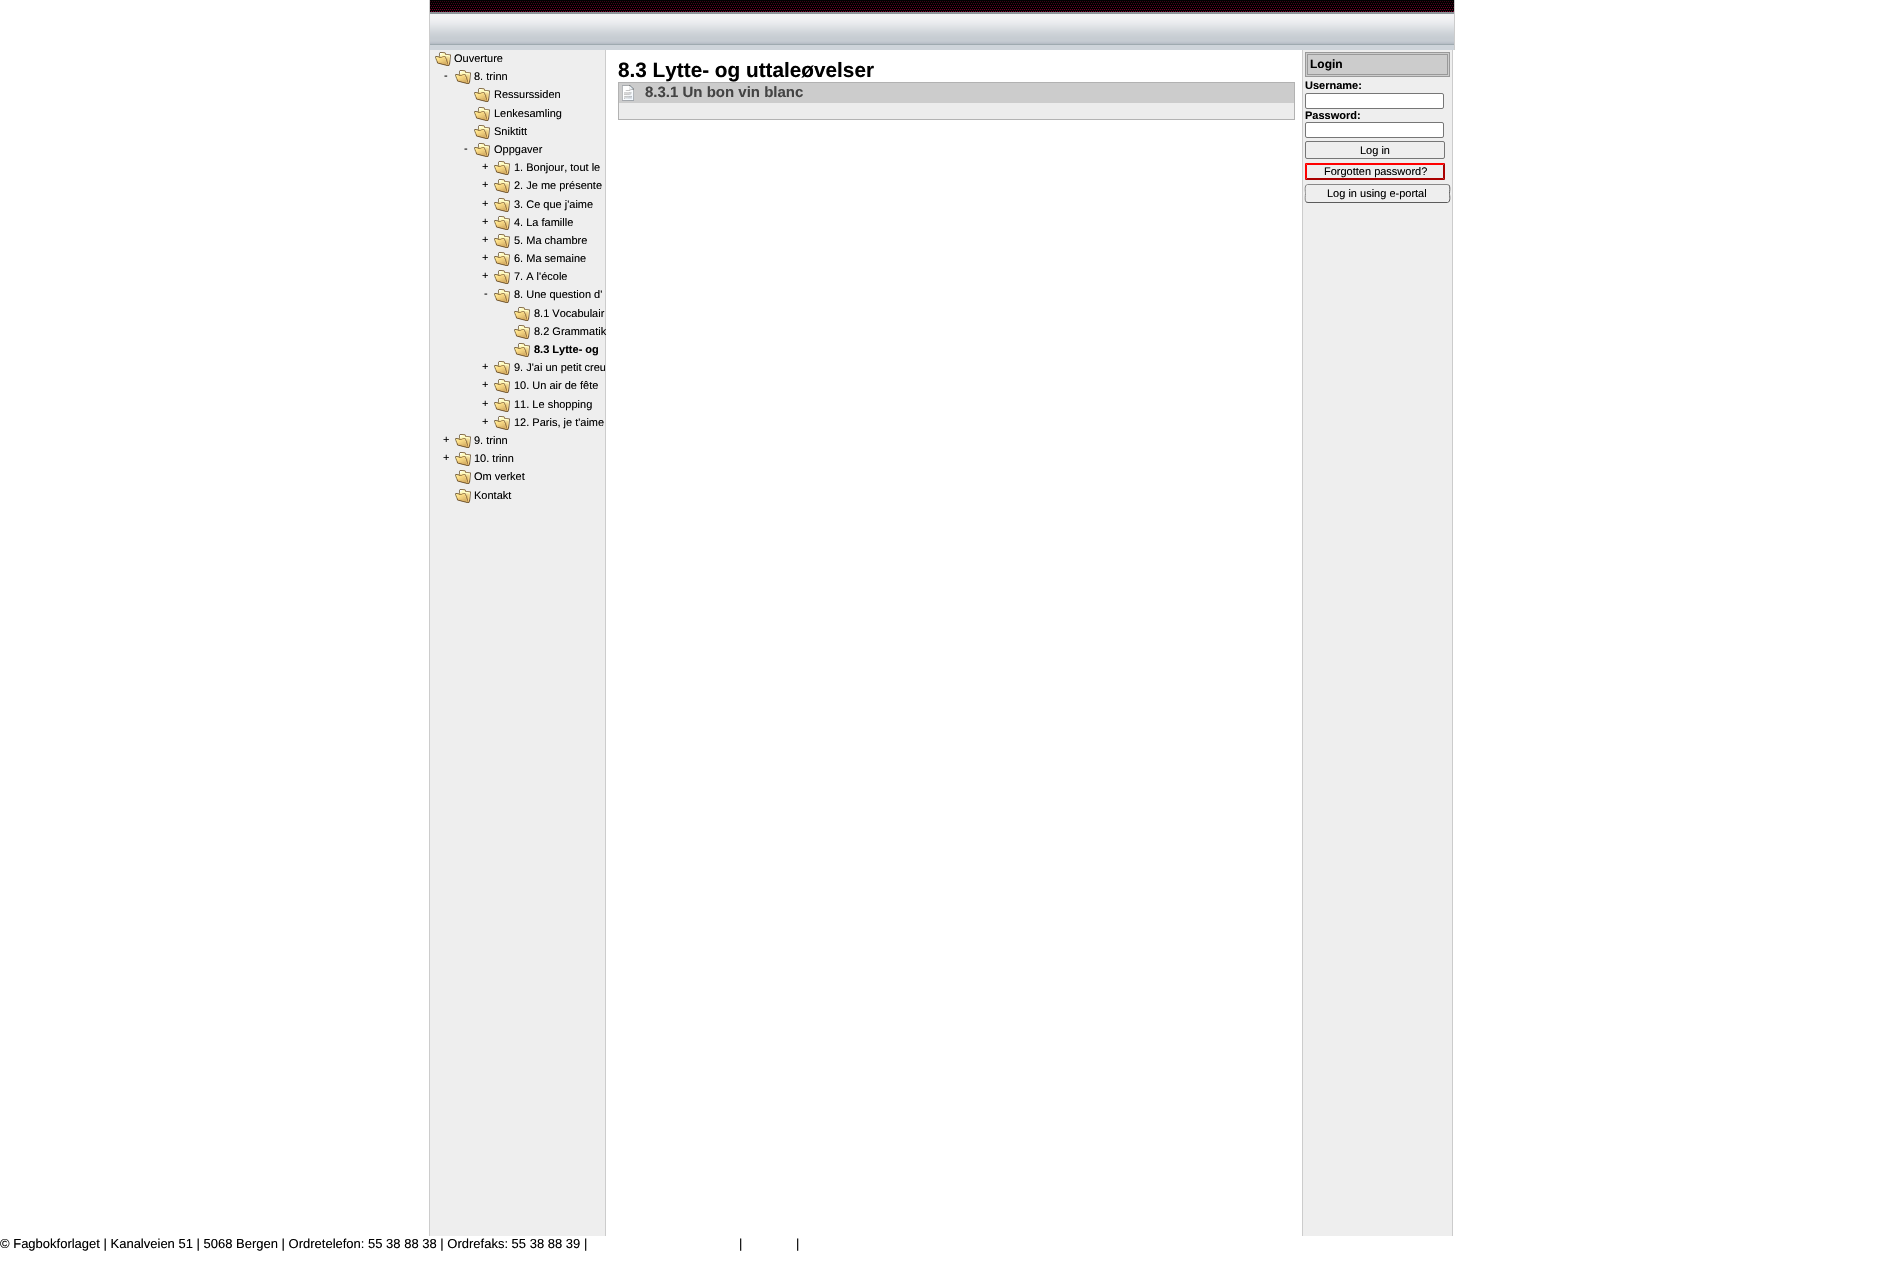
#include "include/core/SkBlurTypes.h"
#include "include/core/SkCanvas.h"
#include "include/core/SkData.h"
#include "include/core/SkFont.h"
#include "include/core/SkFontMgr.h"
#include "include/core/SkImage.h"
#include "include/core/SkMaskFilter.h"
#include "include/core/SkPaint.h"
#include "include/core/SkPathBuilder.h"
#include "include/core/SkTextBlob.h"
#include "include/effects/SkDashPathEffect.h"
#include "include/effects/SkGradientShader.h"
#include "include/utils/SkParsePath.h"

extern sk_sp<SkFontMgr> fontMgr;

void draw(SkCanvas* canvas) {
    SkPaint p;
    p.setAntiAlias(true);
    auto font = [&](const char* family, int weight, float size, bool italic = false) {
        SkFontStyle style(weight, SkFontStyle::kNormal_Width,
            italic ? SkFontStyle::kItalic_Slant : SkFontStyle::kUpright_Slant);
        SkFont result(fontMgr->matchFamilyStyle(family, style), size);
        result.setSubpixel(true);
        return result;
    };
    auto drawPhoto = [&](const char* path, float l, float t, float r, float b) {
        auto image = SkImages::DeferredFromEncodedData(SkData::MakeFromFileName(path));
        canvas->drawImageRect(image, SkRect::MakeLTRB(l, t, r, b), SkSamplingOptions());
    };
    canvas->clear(0xFFFFFFFF);
    p.setColor(0xFFCED4DA);
    canvas->drawRect(SkRect::MakeLTRB(430, 45, 1454, 50), p);
    drawPhoto("media/1.png", 430, 0, 1454, 45);
    {
        const struct { float l, t, r, b; SkColor color; } items[] = {
            {1454, 0, 1455, 50, 0xFFCCCCCC},
            {429, 0, 430, 1236, 0xFFCCCCCC},
            {430, 50, 605, 1236, 0xFFEEEEEE},
            {605, 50, 606, 1236, 0xFFCCCCCC},
        };
        for (auto [l, t, r, b, color] : items) {
            p.setColor(color);
            canvas->drawRect(SkRect::MakeLTRB(l, t, r, b), p);
        }
    }
    drawPhoto("media/2.png", 435, 52, 451, 66);
    auto font1 = font("Liberation Sans", 400, 11);
    p.setColor(0xFF000000);
    canvas->drawString("Ouverture", 454, 62, font1, p);
    canvas->drawString("-", 444, 79, font1, p);
    drawPhoto("media/2.png", 455, 70, 471, 84);
    canvas->drawString("8. trinn", 474, 80, font1, p);
    drawPhoto("media/2.png", 474, 88, 490, 102);
    canvas->drawString("Ressurssiden", 494, 98, font1, p);
    drawPhoto("media/2.png", 474, 107, 490, 121);
    canvas->drawString("Lenkesamling", 494, 117, font1, p);
    drawPhoto("media/2.png", 474, 125, 490, 139);
    canvas->drawString("Sniktitt", 494, 135, font1, p);
    canvas->drawString("-", 464, 152, font1, p);
    drawPhoto("media/2.png", 474, 143, 490, 157);
    canvas->drawString("Oppgaver", 494, 153, font1, p);
    canvas->drawString("+", 482, 170, font1, p);
    drawPhoto("media/2.png", 494, 161, 510, 175);
    canvas->drawString("1. Bonjour, tout le", 514, 171, font1, p);
    canvas->drawString("+", 482, 188, font1, p);
    drawPhoto("media/2.png", 494, 179, 510, 193);
    canvas->drawString("2. Je me présente", 514, 189, font1, p);
    canvas->drawString("+", 482, 207, font1, p);
    drawPhoto("media/2.png", 494, 198, 510, 212);
    canvas->drawString("3. Ce que j'aime", 514, 208, font1, p);
    canvas->drawString("+", 482, 225, font1, p);
    drawPhoto("media/2.png", 494, 216, 510, 230);
    canvas->drawString("4. La famille", 514, 226, font1, p);
    canvas->drawString("+", 482, 243, font1, p);
    drawPhoto("media/2.png", 494, 234, 510, 248);
    canvas->drawString("5. Ma chambre", 514, 244, font1, p);
    canvas->drawString("+", 482, 261, font1, p);
    drawPhoto("media/2.png", 494, 252, 510, 266);
    canvas->drawString("6. Ma semaine", 514, 262, font1, p);
    canvas->drawString("+", 482, 279, font1, p);
    drawPhoto("media/2.png", 494, 270, 510, 284);
    canvas->drawString("7. A l'école", 514, 280, font1, p);
    canvas->drawString("-", 484, 297, font1, p);
    drawPhoto("media/2.png", 494, 289, 510, 303);
    canvas->drawString("8. Une question d'", 514, 298, font1, p);
    drawPhoto("media/2.png", 514, 307, 530, 321);
    canvas->drawString("8.1 Vocabulair", 534, 317, font1, p);
    drawPhoto("media/2.png", 514, 325, 530, 339);
    canvas->drawString("8.2 Grammatik", 534, 335, font1, p);
    drawPhoto("media/2.png", 514, 343, 530, 357);
    auto font2 = font("Liberation Sans", 700, 11);
    canvas->drawString("8.3 Lytte- og", 534, 353, font2, p);
    canvas->drawString("+", 482, 370, font1, p);
    drawPhoto("media/2.png", 494, 361, 510, 375);
    canvas->save();
    canvas->clipRect(SkRect::MakeLTRB(430, 50, 605, 1236));
    canvas->drawString("9. J'ai un petit creu", 514, 371, font1, p);
    canvas->restore();
    canvas->drawString("+", 482, 388, font1, p);
    drawPhoto("media/2.png", 494, 379, 510, 393);
    canvas->drawString("10. Un air de fête", 514, 389, font1, p);
    canvas->drawString("+", 482, 407, font1, p);
    drawPhoto("media/2.png", 494, 398, 510, 412);
    canvas->drawString("11. Le shopping", 514, 408, font1, p);
    canvas->drawString("+", 482, 425, font1, p);
    drawPhoto("media/2.png", 494, 416, 510, 430);
    canvas->drawString("12. Paris, je t'aime", 514, 426, font1, p);
    canvas->drawString("+", 443, 443, font1, p);
    drawPhoto("media/2.png", 455, 434, 471, 448);
    canvas->drawString("9. trinn", 474, 444, font1, p);
    canvas->drawString("+", 443, 461, font1, p);
    drawPhoto("media/2.png", 455, 452, 471, 466);
    canvas->drawString("10. trinn", 474, 462, font1, p);
    drawPhoto("media/2.png", 455, 470, 471, 484);
    canvas->drawString("Om verket", 474, 480, font1, p);
    drawPhoto("media/2.png", 455, 489, 471, 503);
    canvas->drawString("Kontakt", 474, 499, font1, p);
    auto font3 = font("Liberation Sans", 700, 20.75f);
    canvas->drawString("8.3 Lytte- og uttaleøvelser", 618, 77, font3, p);
    p.setColor(0xFFECECEC);
    canvas->drawRect(SkRect::MakeLTRB(619, 103, 1294, 119), p);
    p.setStyle(SkPaint::kStroke_Style);
    p.setStrokeWidth(1);
    p.setColor(0xFFB2B2B2);
    canvas->drawRect(SkRect::MakeLTRB(618.5f, 82.5f, 1294.5f, 119.5f), p);
    p.setStyle(SkPaint::kFill_Style);
    p.setColor(0xFFCCCCCC);
    canvas->drawRect(SkRect::MakeLTRB(619, 83, 1294, 103), p);
    drawPhoto("media/3.png", 622, 85, 634, 101);
    auto font4 = font("Liberation Sans", 700, 15);
    p.setColor(0xFF444444);
    canvas->drawString("8.3.1 Un bon vin blanc", 645, 97, font4, p);
    {
        const struct { float l, t, r, b; SkColor color; } items[] = {
            {1303, 50, 1452, 1236, 0xFFEEEEEE},
            {1452, 50, 1453, 1236, 0xFFCCCCCC},
            {1302, 50, 1303, 1236, 0xFFCCCCCC},
        };
        for (auto [l, t, r, b, color] : items) {
            p.setColor(color);
            canvas->drawRect(SkRect::MakeLTRB(l, t, r, b), p);
        }
    }
    canvas->drawRect(SkRect::MakeLTRB(1305.5f, 52.5f, 1449.5f, 76.5f), p);
    p.setStyle(SkPaint::kStroke_Style);
    p.setColor(0xFF999999);
    canvas->drawRect(SkRect::MakeLTRB(1305.5f, 52.5f, 1449.5f, 76.5f), p);
    canvas->drawRect(SkRect::MakeLTRB(1307.5f, 54.5f, 1447.5f, 74.5f), p);
    auto font5 = font("Liberation Sans", 700, 12);
    p.setStyle(SkPaint::kFill_Style);
    p.setColor(0xFF000000);
    canvas->drawString("Login", 1310, 68, font5, p);
    canvas->drawString("Username:", 1305, 89, font2, p);
    p.setColor(0xFFFFFFFF);
    canvas->drawRoundRect(SkRect::MakeLTRB(1305.5f, 93.5f, 1443.5f, 108.5f), 1.5f, 1.5f, p);
    p.setStyle(SkPaint::kStroke_Style);
    p.setColor(0xFF767676);
    canvas->drawRoundRect(SkRect::MakeLTRB(1305.5f, 93.5f, 1443.5f, 108.5f), 1.5f, 1.5f, p);
    p.setStyle(SkPaint::kFill_Style);
    p.setColor(0xFF000000);
    canvas->drawString("Password:", 1305, 119, font2, p);
    p.setColor(0xFFFFFFFF);
    canvas->drawRoundRect(SkRect::MakeLTRB(1305.5f, 122.5f, 1443.5f, 137.5f), 1.5f, 1.5f, p);
    p.setStyle(SkPaint::kStroke_Style);
    p.setColor(0xFF767676);
    canvas->drawRoundRect(SkRect::MakeLTRB(1305.5f, 122.5f, 1443.5f, 137.5f), 1.5f, 1.5f, p);
    canvas->drawRoundRect(SkRect::MakeLTRB(1305.5f, 141.5f, 1444.5f, 158.5f), 1.5f, 1.5f, p);
    p.setStyle(SkPaint::kFill_Style);
    p.setColor(0xFF000000);
    canvas->drawString("Log in", 1360, 154, font1, p);
    p.setColor(0xFFFF0000);
    canvas->drawPath(SkPathBuilder().moveTo(1305, 163).lineTo(1445, 163).lineTo(1443, 165).lineTo(1307, 165).close().detach(), p);
    p.setColor(0xFFAA0000);
    canvas->drawPath(SkPathBuilder().moveTo(1445, 163).lineTo(1445, 180).lineTo(1443, 178).lineTo(1443, 165).close().detach(), p);
    canvas->drawPath(SkPathBuilder().moveTo(1445, 180).lineTo(1305, 180).lineTo(1307, 178).lineTo(1443, 178).close().detach(), p);
    p.setColor(0xFFFF0000);
    canvas->drawPath(SkPathBuilder().moveTo(1305, 180).lineTo(1305, 163).lineTo(1307, 165).lineTo(1307, 178).close().detach(), p);
    p.setColor(0xFF000000);
    canvas->drawString("Forgotten password?", 1324, 175, font1, p);
    p.setStyle(SkPaint::kStroke_Style);
    p.setColor(0xFF5B5B5B);
    canvas->drawPath(SkPathBuilder().moveTo(1449, 185).cubicTo(1450.5f, 187, 1449.5f, 191.5f, 1449.5f, 193.5f).cubicTo(1449.5f, 195.5f, 1451, 202, 1447.5f, 202.5f).lineTo(1308, 202.5f).lineTo(1306, 202).detach(), p);
    p.setColor(0xFF888888);
    canvas->drawPath(SkPathBuilder().moveTo(1306, 202).cubicTo(1304.5f, 200, 1305.5f, 195.5f, 1305.5f, 193.5f).cubicTo(1305.5f, 191.5f, 1304, 185, 1307.5f, 184.5f).lineTo(1447, 184.5f).lineTo(1449, 185).detach(), p);
    p.setStyle(SkPaint::kFill_Style);
    p.setColor(0xFF000000);
    canvas->drawString("Log in using e-portal", 1327, 197, font1, p);
    auto font6 = font("Liberation Sans", 400, 13);
    {
        const struct { const char* s; float x, y; } items[] = {
            {"© Fagbokforlaget | Kanalveien 51 | 5068 Bergen | Ordretelefon: 55 38 88 38 | Ordrefaks: 55 38 88 39 |", 0, 1248},
            {"|", 739, 1248},
            {"|", 796, 1248},
        };
        for (auto [s, x, y] : items) {
            canvas->drawString(s, x, y, font6, p);
        }
    }
}
